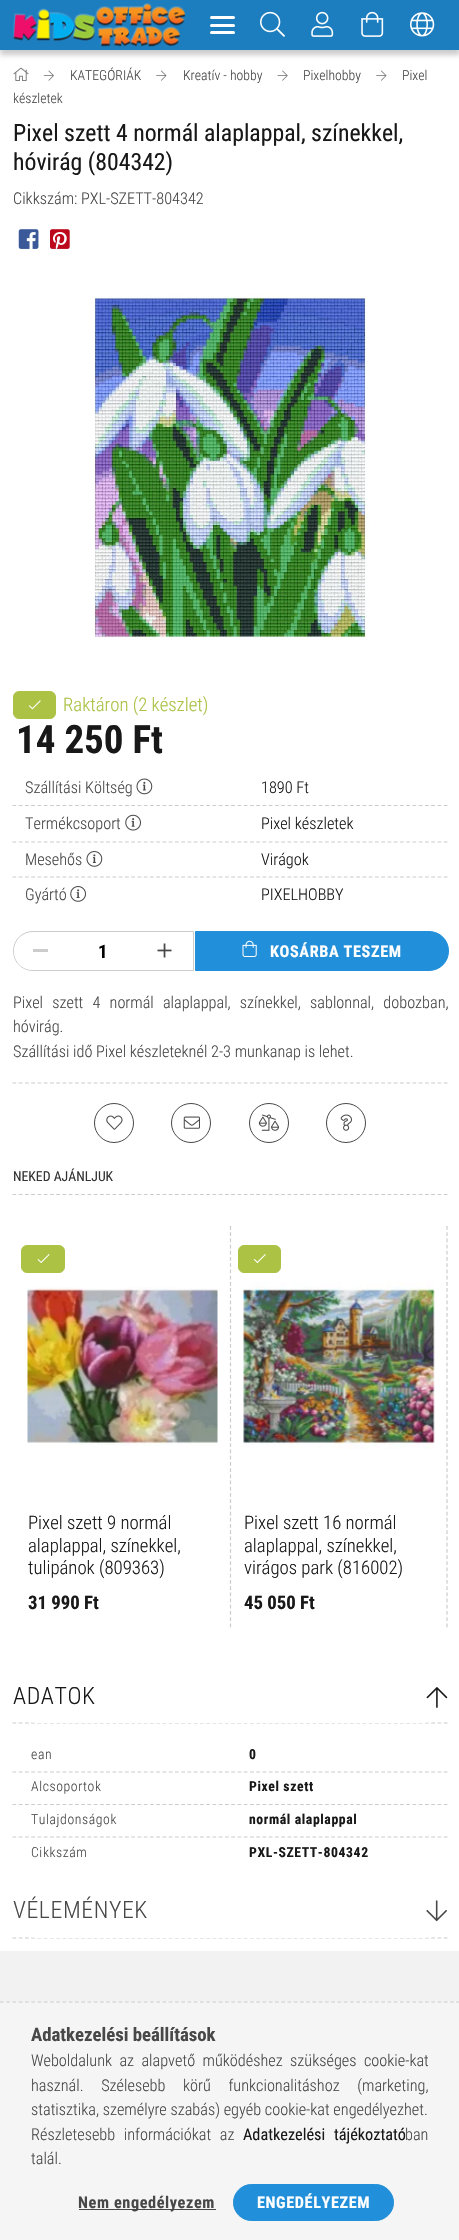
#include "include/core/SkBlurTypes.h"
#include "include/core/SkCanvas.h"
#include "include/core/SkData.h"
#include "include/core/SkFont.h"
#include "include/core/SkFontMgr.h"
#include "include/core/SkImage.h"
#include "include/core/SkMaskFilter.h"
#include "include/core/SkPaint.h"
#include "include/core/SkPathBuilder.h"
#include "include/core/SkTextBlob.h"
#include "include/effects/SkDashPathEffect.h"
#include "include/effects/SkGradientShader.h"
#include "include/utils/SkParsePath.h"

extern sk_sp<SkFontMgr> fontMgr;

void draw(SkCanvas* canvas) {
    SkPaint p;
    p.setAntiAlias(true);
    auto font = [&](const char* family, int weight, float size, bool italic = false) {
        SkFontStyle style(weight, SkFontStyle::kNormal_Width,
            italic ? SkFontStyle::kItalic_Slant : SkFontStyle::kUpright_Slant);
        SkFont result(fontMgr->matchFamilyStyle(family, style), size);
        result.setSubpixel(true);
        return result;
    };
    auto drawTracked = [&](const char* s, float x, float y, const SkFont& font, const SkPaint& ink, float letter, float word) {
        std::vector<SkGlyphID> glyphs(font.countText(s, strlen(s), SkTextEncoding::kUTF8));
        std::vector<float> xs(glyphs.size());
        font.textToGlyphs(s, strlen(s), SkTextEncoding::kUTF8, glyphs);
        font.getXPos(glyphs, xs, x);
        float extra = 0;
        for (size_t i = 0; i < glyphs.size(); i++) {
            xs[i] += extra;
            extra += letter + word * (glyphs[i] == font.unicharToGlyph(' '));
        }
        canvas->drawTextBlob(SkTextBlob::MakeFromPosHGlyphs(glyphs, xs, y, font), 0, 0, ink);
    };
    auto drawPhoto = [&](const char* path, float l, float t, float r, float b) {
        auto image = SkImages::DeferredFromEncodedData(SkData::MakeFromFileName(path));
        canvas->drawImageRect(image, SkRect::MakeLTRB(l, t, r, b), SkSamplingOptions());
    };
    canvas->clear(0xFFFFFFFF);
    p.setColor(0x33000000);
    p.setMaskFilter(SkMaskFilter::MakeBlur(kNormal_SkBlurStyle, 2.5f));
    canvas->drawRect(SkRect::MakeLTRB(0, 5, 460, 55), p);
    p.setMaskFilter(nullptr);
    p.setColor(0xFF1D7EBF);
    canvas->drawRect(SkRect::MakeLTRB(0, 0, 459, 50), p);
    drawPhoto("media/1.png", 13, 3, 185, 47);
    p.setColor(0xFFFFFFFF);
    canvas->drawRoundRect(SkRect::MakeLTRB(210, 16, 235, 19), 1.5f, 1.5f, p);
    canvas->drawRoundRect(SkRect::MakeLTRB(210, 24, 235, 27), 1.5f, 1.5f, p);
    canvas->drawRoundRect(SkRect::MakeLTRB(210, 31, 235, 34), 1.5f, 1.5f, p);
    drawPhoto("media/2.png", 260, 11, 285, 37);
    drawPhoto("media/3.png", 311, 11, 334, 37);
    drawPhoto("media/4.png", 361, 11, 384, 37);
    drawPhoto("media/5.png", 410, 12, 435, 37);
    drawPhoto("media/6.png", 13, 67, 29, 81);
    drawPhoto("media/7.png", 43, 70, 54, 81);
    auto font1 = font("Roboto Condensed", 300, 13.75f);
    p.setColor(0xFF484848);
    canvas->drawString("KATEGÓRIÁK", 70, 80, font1, p);
    drawPhoto("media/8.png", 156, 70, 167, 81);
    canvas->drawString("Kreatív - hobby", 183, 80, font1, p);
    drawPhoto("media/9.png", 277, 70, 288, 81);
    canvas->drawString("Pixelhobby", 303, 80, font1, p);
    drawPhoto("media/8.png", 376, 70, 387, 81);
    canvas->drawString("Pixel", 402, 80, font1, p);
    canvas->drawString("készletek", 13, 103, font1, p);
    auto font2 = font("Roboto Condensed", 400, 23.75f);
    p.setColor(0xFF181818);
    canvas->drawString("Pixel szett 4 normál alaplappal, színekkel,", 13, 141, font2, p);
    canvas->drawString("hóvirág (804342)", 13, 170, font2, p);
    auto font3 = font("Roboto Condensed", 300, 16.25f);
    p.setColor(0xFF484848);
    canvas->drawString("Cikkszám: PXL-SZETT-804342", 13, 204, font3, p);
    drawPhoto("media/10.png", 18, 229, 39, 249);
    drawPhoto("media/11.png", 50, 229, 70, 249);
    drawPhoto("media/12.png", 94, 294, 369, 638);
    p.setColor(0xFFABC244);
    canvas->drawRoundRect(SkRect::MakeLTRB(13.5f, 691.5f, 55.5f, 718.5f), 5.5f, 5.5f, p);
    p.setStyle(SkPaint::kStroke_Style);
    p.setStrokeWidth(1);
    canvas->drawRoundRect(SkRect::MakeLTRB(13.5f, 691.5f, 55.5f, 718.5f), 5.5f, 5.5f, p);
    drawPhoto("media/13.png", 28, 700, 41, 710);
    auto font4 = font("Roboto Condensed", 300, 18.75f);
    p.setStyle(SkPaint::kFill_Style);
    canvas->drawString("Raktáron (2 készlet)", 63, 711, font4, p);
    auto font5 = font("Roboto Condensed", 700, 39);
    p.setColor(0xFF181818);
    canvas->drawString("14 250 Ft", 16, 753, font5, p);
    p.setColor(0xFF484848);
    canvas->drawString("Szállítási Költség", 25, 793, font3, p);
    drawPhoto("media/14.png", 136, 778, 153, 795);
    p.setColor(0xFF181818);
    canvas->drawString("1890 Ft", 261, 793, font3, p);
    p.setStyle(SkPaint::kStroke_Style);
    p.setStrokeWidth(1.2f);
    p.setColor(0xFFCCCCCC);
    p.setPathEffect(SkDashPathEffect::Make({{3.75f, 2.5f}}, 0));
    canvas->drawPath(SkPathBuilder().moveTo(12.5f, 805.5f).lineTo(447.5f, 805.5f).detach(), p);
    p.setPathEffect(nullptr);
    p.setStyle(SkPaint::kFill_Style);
    p.setColor(0xFF484848);
    canvas->drawString("Termékcsoport", 25, 829, font3, p);
    drawPhoto("media/15.png", 125, 814, 141, 831);
    p.setColor(0xFF181818);
    canvas->drawString("Pixel készletek", 261, 829, font3, p);
    p.setStyle(SkPaint::kStroke_Style);
    p.setColor(0xFFCCCCCC);
    p.setPathEffect(SkDashPathEffect::Make({{3.75f, 2.5f}}, 0));
    canvas->drawPath(SkPathBuilder().moveTo(12.5f, 842).lineTo(447.5f, 842).detach(), p);
    p.setPathEffect(nullptr);
    p.setStyle(SkPaint::kFill_Style);
    p.setColor(0xFF484848);
    canvas->drawString("Mesehős", 25, 865, font3, p);
    drawPhoto("media/16.png", 86, 851, 103, 867);
    p.setColor(0xFF181818);
    canvas->drawString("Virágok", 261, 865, font3, p);
    p.setStyle(SkPaint::kStroke_Style);
    p.setColor(0xFFCCCCCC);
    p.setPathEffect(SkDashPathEffect::Make({{3.75f, 2.5f}}, 0));
    canvas->drawPath(SkPathBuilder().moveTo(12.5f, 877).lineTo(447.5f, 877).detach(), p);
    p.setPathEffect(nullptr);
    p.setStyle(SkPaint::kFill_Style);
    p.setColor(0xFF484848);
    canvas->drawString("Gyártó", 25, 900, font3, p);
    drawPhoto("media/17.png", 70, 886, 86, 902);
    p.setColor(0xFF181818);
    canvas->drawString("PIXELHOBBY", 261, 900, font3, p);
    p.setStyle(SkPaint::kStroke_Style);
    p.setStrokeWidth(1);
    p.setColor(0xFFCCCCCC);
    canvas->drawPath(SkPathBuilder().moveTo(33, 931.5f).lineTo(193.5f, 931.5f).lineTo(193.5f, 970.5f).lineTo(33, 970.5f).cubicTo(22, 970.5f, 13.5f, 962, 13.5f, 951).cubicTo(13.5f, 940, 22, 931.5f, 33, 931.5f).close().detach(), p);
    p.setStyle(SkPaint::kFill_Style);
    p.setColor(0xFFFFFFFF);
    canvas->drawPath(SkPathBuilder().moveTo(32.5f, 933).lineTo(69, 933).lineTo(69, 970).lineTo(32.5f, 970).cubicTo(22.5f, 970, 14, 961.5f, 14, 951.5f).cubicTo(14, 941.5f, 22.5f, 933, 32.5f, 933).close().detach(), p);
    p.setColor(0xFFCCCCCC);
    canvas->drawRect(SkRect::MakeLTRB(33, 949, 48, 952), p);
    auto font6 = font("Roboto Condensed", 700, 18.75f);
    p.setColor(0xFF000000);
    canvas->drawString("1", 98, 958, font6, p);
    drawPhoto("media/18.png", 157, 943, 172, 958);
    p.setColor(0xFF218FD9);
    canvas->drawPath(SkPathBuilder().moveTo(195.5f, 931.5f).lineTo(429, 931.5f).cubicTo(440, 931.5f, 448.5f, 940, 448.5f, 951).cubicTo(448.5f, 962, 440, 970.5f, 429, 970.5f).lineTo(195.5f, 970.5f).close().detach(), p);
    p.setStyle(SkPaint::kStroke_Style);
    canvas->drawPath(SkPathBuilder().moveTo(195.5f, 931.5f).lineTo(429, 931.5f).cubicTo(440, 931.5f, 448.5f, 940, 448.5f, 951).cubicTo(448.5f, 962, 440, 970.5f, 429, 970.5f).lineTo(195.5f, 970.5f).close().detach(), p);
    drawPhoto("media/19.png", 242, 940, 257, 957);
    auto font7 = font("Roboto Condensed", 700, 16.25f);
    p.setStyle(SkPaint::kFill_Style);
    p.setColor(0xFFFFFFFF);
    drawTracked("KOSÁRBA TESZEM", 270, 957, font7, p, 0.6f, 0);
    p.setColor(0xFF484848);
    drawTracked("Pixel szett 4 normál alaplappal, színekkel, sablonnal, dobozban,", 13, 1008, font3, p, 0, 5.5f);
    canvas->drawString("hóvirág.", 13, 1032, font3, p);
    canvas->drawString("Szállítási idő Pixel készleteknél 2-3 munkanap is lehet.", 13, 1057, font3, p);
    p.setStyle(SkPaint::kStroke_Style);
    p.setStrokeWidth(1.2f);
    p.setColor(0xFFCCCCCC);
    p.setPathEffect(SkDashPathEffect::Make({{3.75f, 2.5f}}, 0));
    canvas->drawPath(SkPathBuilder().moveTo(12.5f, 1083).lineTo(447.5f, 1083).detach(), p);
    p.setPathEffect(nullptr);
    p.setStrokeWidth(1);
    p.setColor(0xFF484848);
    canvas->drawCircle(114, 1123, 19.5f, p);
    drawPhoto("media/20.png", 106, 1115, 123, 1130);
    canvas->drawCircle(191, 1123, 19.5f, p);
    drawPhoto("media/21.png", 183, 1116, 200, 1129);
    canvas->drawCircle(269, 1123, 19.5f, p);
    drawPhoto("media/22.png", 258, 1114, 280, 1131);
    canvas->drawCircle(346, 1123, 19.5f, p);
    drawPhoto("media/23.png", 340, 1114, 352, 1131);
    p.setStrokeWidth(1.2f);
    p.setColor(0xFFCCCCCC);
    p.setPathEffect(SkDashPathEffect::Make({{3.75f, 2.5f}}, 0));
    canvas->drawPath(SkPathBuilder().moveTo(12.5f, 1194.5f).lineTo(447.5f, 1194.5f).detach(), p);
    p.setPathEffect(nullptr);
    auto font8 = font("Roboto Condensed", 400, 13.75f);
    p.setStyle(SkPaint::kFill_Style);
    p.setColor(0xFF333333);
    canvas->drawString("NEKED AJÁNLJUK", 13, 1181, font8, p);
    p.setStyle(SkPaint::kStroke_Style);
    p.setColor(0xFFCCCCCC);
    p.setPathEffect(SkDashPathEffect::Make({{3.75f, 2.46f}}, 0));
    canvas->drawPath(SkPathBuilder().moveTo(230.5f, 1226).lineTo(230.5f, 1627.5f).detach(), p);
    p.setPathEffect(nullptr);
    p.setStyle(SkPaint::kFill_Style);
    p.setColor(0xFFABC244);
    canvas->drawRoundRect(SkRect::MakeLTRB(21.5f, 1245.5f, 64.5f, 1272.5f), 5.5f, 5.5f, p);
    p.setStyle(SkPaint::kStroke_Style);
    p.setStrokeWidth(1);
    canvas->drawRoundRect(SkRect::MakeLTRB(21.5f, 1245.5f, 64.5f, 1272.5f), 5.5f, 5.5f, p);
    drawPhoto("media/24.png", 37, 1254, 50, 1264);
    drawPhoto("media/25.png", 27, 1287, 218, 1446);
    p.setStyle(SkPaint::kFill_Style);
    p.setColor(0xFF181818);
    {
        const struct { const char* s; float x, y; } items[] = {
            {"Pixel szett 9 normál", 28, 1529},
            {"alaplappal, színekkel,", 28, 1552},
            {"tulipánok (809363)", 28, 1574},
        };
        for (auto [s, x, y] : items) {
            canvas->drawString(s, x, y, font4, p);
        }
    }
    canvas->drawString("31 990 Ft", 28, 1609, font6, p);
    p.setStyle(SkPaint::kStroke_Style);
    p.setStrokeWidth(1.2f);
    p.setColor(0xFFCCCCCC);
    p.setPathEffect(SkDashPathEffect::Make({{3.75f, 2.46f}}, 0));
    canvas->drawPath(SkPathBuilder().moveTo(447, 1226).lineTo(447, 1627.5f).detach(), p);
    p.setPathEffect(nullptr);
    p.setStyle(SkPaint::kFill_Style);
    p.setColor(0xFFABC244);
    canvas->drawRoundRect(SkRect::MakeLTRB(238.5f, 1245.5f, 280.5f, 1272.5f), 5.5f, 5.5f, p);
    p.setStyle(SkPaint::kStroke_Style);
    p.setStrokeWidth(1);
    canvas->drawRoundRect(SkRect::MakeLTRB(238.5f, 1245.5f, 280.5f, 1272.5f), 5.5f, 5.5f, p);
    drawPhoto("media/26.png", 253, 1254, 266, 1264);
    drawPhoto("media/27.png", 243, 1282, 435, 1449);
    p.setStyle(SkPaint::kFill_Style);
    p.setColor(0xFF181818);
    {
        const struct { const char* s; float x, y; } items[] = {
            {"Pixel szett 16 normál", 244, 1529},
            {"alaplappal, színekkel,", 244, 1552},
            {"virágos park (816002)", 244, 1574},
        };
        for (auto [s, x, y] : items) {
            canvas->drawString(s, x, y, font4, p);
        }
    }
    canvas->drawString("45 050 Ft", 244, 1609, font6, p);
    p.setStyle(SkPaint::kStroke_Style);
    p.setStrokeWidth(1.2f);
    p.setColor(0xFFCCCCCC);
    p.setPathEffect(SkDashPathEffect::Make({{3.75f, 2.5f}}, 0));
    canvas->drawPath(SkPathBuilder().moveTo(12.5f, 1723).lineTo(447.5f, 1723).detach(), p);
    p.setPathEffect(nullptr);
    p.setStyle(SkPaint::kFill_Style);
    p.setColor(0xFFFFFFFF);
    canvas->drawRoundRect(SkRect::MakeLTRB(13, 1671, 448, 1723), 25, 25, p);
    auto font9 = font("Roboto Condensed", 300, 23.75f);
    p.setColor(0xFF181818);
    drawTracked("ADATOK", 13, 1704, font9, p, 0.6f, 0);
    drawPhoto("media/28.png", 426, 1687, 448, 1708);
    p.setColor(0xFF484848);
    drawTracked("ean", 31, 1759, font1, p, 0.6f, 0);
    auto font10 = font("Roboto Condensed", 700, 13.75f);
    p.setColor(0xFF181818);
    drawTracked("0", 249, 1759, font10, p, 0.6f, 0);
    p.setStyle(SkPaint::kStroke_Style);
    p.setColor(0xFFCCCCCC);
    p.setPathEffect(SkDashPathEffect::Make({{3.75f, 2.5f}}, 0));
    canvas->drawPath(SkPathBuilder().moveTo(12.5f, 1772).lineTo(447.5f, 1772).detach(), p);
    p.setPathEffect(nullptr);
    p.setStyle(SkPaint::kFill_Style);
    p.setColor(0xFF484848);
    drawTracked("Alcsoportok", 31, 1791, font1, p, 0.6f, 0);
    p.setColor(0xFF181818);
    drawTracked("Pixel szett", 249, 1791, font10, p, 0.6f, 0);
    p.setStyle(SkPaint::kStroke_Style);
    p.setColor(0xFFCCCCCC);
    p.setPathEffect(SkDashPathEffect::Make({{3.75f, 2.5f}}, 0));
    canvas->drawPath(SkPathBuilder().moveTo(12.5f, 1804.5f).lineTo(447.5f, 1804.5f).detach(), p);
    p.setPathEffect(nullptr);
    p.setStyle(SkPaint::kFill_Style);
    p.setColor(0xFF484848);
    drawTracked("Tulajdonságok", 31, 1824, font1, p, 0.6f, 0);
    p.setColor(0xFF181818);
    drawTracked("normál alaplappal", 249, 1824, font10, p, 0.6f, 0);
    p.setStyle(SkPaint::kStroke_Style);
    p.setColor(0xFFCCCCCC);
    p.setPathEffect(SkDashPathEffect::Make({{3.75f, 2.5f}}, 0));
    canvas->drawPath(SkPathBuilder().moveTo(12.5f, 1837).lineTo(447.5f, 1837).detach(), p);
    p.setPathEffect(nullptr);
    p.setStyle(SkPaint::kFill_Style);
    p.setColor(0xFF484848);
    drawTracked("Cikkszám", 31, 1857, font1, p, 0.6f, 0);
    p.setColor(0xFF181818);
    drawTracked("PXL-SZETT-804342", 249, 1857, font10, p, 0.6f, 0);
    p.setStyle(SkPaint::kStroke_Style);
    p.setColor(0xFFCCCCCC);
    p.setPathEffect(SkDashPathEffect::Make({{3.75f, 2.5f}}, 0));
    canvas->drawPath(SkPathBuilder().moveTo(12.5f, 1938).lineTo(447.5f, 1938).detach(), p);
    p.setPathEffect(nullptr);
    p.setStyle(SkPaint::kFill_Style);
    p.setColor(0xFFFFFFFF);
    canvas->drawRoundRect(SkRect::MakeLTRB(13, 1885, 448, 1938), 25, 25, p);
    p.setColor(0xFF484848);
    drawTracked("VÉLEMÉNYEK", 13, 1918, font9, p, 0.6f, 0);
    drawPhoto("media/29.png", 426, 1900, 447, 1922);
    p.setColor(0xFFF2F2F2);
    canvas->drawRect(SkRect::MakeLTRB(0, 1951, 459, 2001), p);
    p.setColor(0xFFF5F5F5);
    canvas->drawRect(SkRect::MakeLTRB(0, 2001, 459, 2240), p);
    p.setStyle(SkPaint::kStroke_Style);
    p.setColor(0xFFCCCCCC);
    p.setPathEffect(SkDashPathEffect::Make({{3.75f, 2.5f}}, 0));
    canvas->drawPath(SkPathBuilder().moveTo(0, 2002).lineTo(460, 2002).detach(), p);
    p.setPathEffect(nullptr);
    p.setStyle(SkPaint::kFill_Style);
    p.setColor(0xFF484848);
    canvas->drawString("Adatkezelési beállítások", 31, 2041, font6, p);
    drawTracked("Weboldalunk az alapvető működéshez szükséges cookie-kat", 31, 2066, font3, p, 0, 3.75f);
    drawTracked("használ. Szélesebb körű funkcionalitáshoz (marketing,", 31, 2091, font3, p, 0, 14);
    canvas->drawString("statisztika, személyre szabás) egyéb cookie-kat engedélyezhet.", 31, 2115, font3, p);
    drawTracked("Részletesebb információkat az", 31, 2140, font3, p, 0, 5);
    auto font11 = font("Roboto Condensed", 400, 16.25f);
    p.setColor(0xFF181818);
    drawTracked("Adatkezelési tájékoztató", 243, 2140, font11, p, 0, 5);
    p.setColor(0xFF484848);
    canvas->drawString("ban", 405, 2140, font3, p);
    canvas->drawString("talál.", 31, 2164, font3, p);
    canvas->drawRect(SkRect::MakeLTRB(79, 2209, 216, 2210), p);
    drawTracked("Nem engedélyezem", 78, 2208, font7, p, 0.6f, 0);
    p.setColor(0xFF218FD9);
    canvas->drawRoundRect(SkRect::MakeLTRB(233.5f, 2184.5f, 393.5f, 2220.5f), 18, 18, p);
    p.setStyle(SkPaint::kStroke_Style);
    p.setStrokeWidth(1);
    canvas->drawRoundRect(SkRect::MakeLTRB(233.5f, 2184.5f, 393.5f, 2220.5f), 18, 18, p);
    p.setStyle(SkPaint::kFill_Style);
    p.setColor(0xFFFFFFFF);
    drawTracked("ENGEDÉLYEZEM", 257, 2208, font7, p, 0.6f, 0);
}
